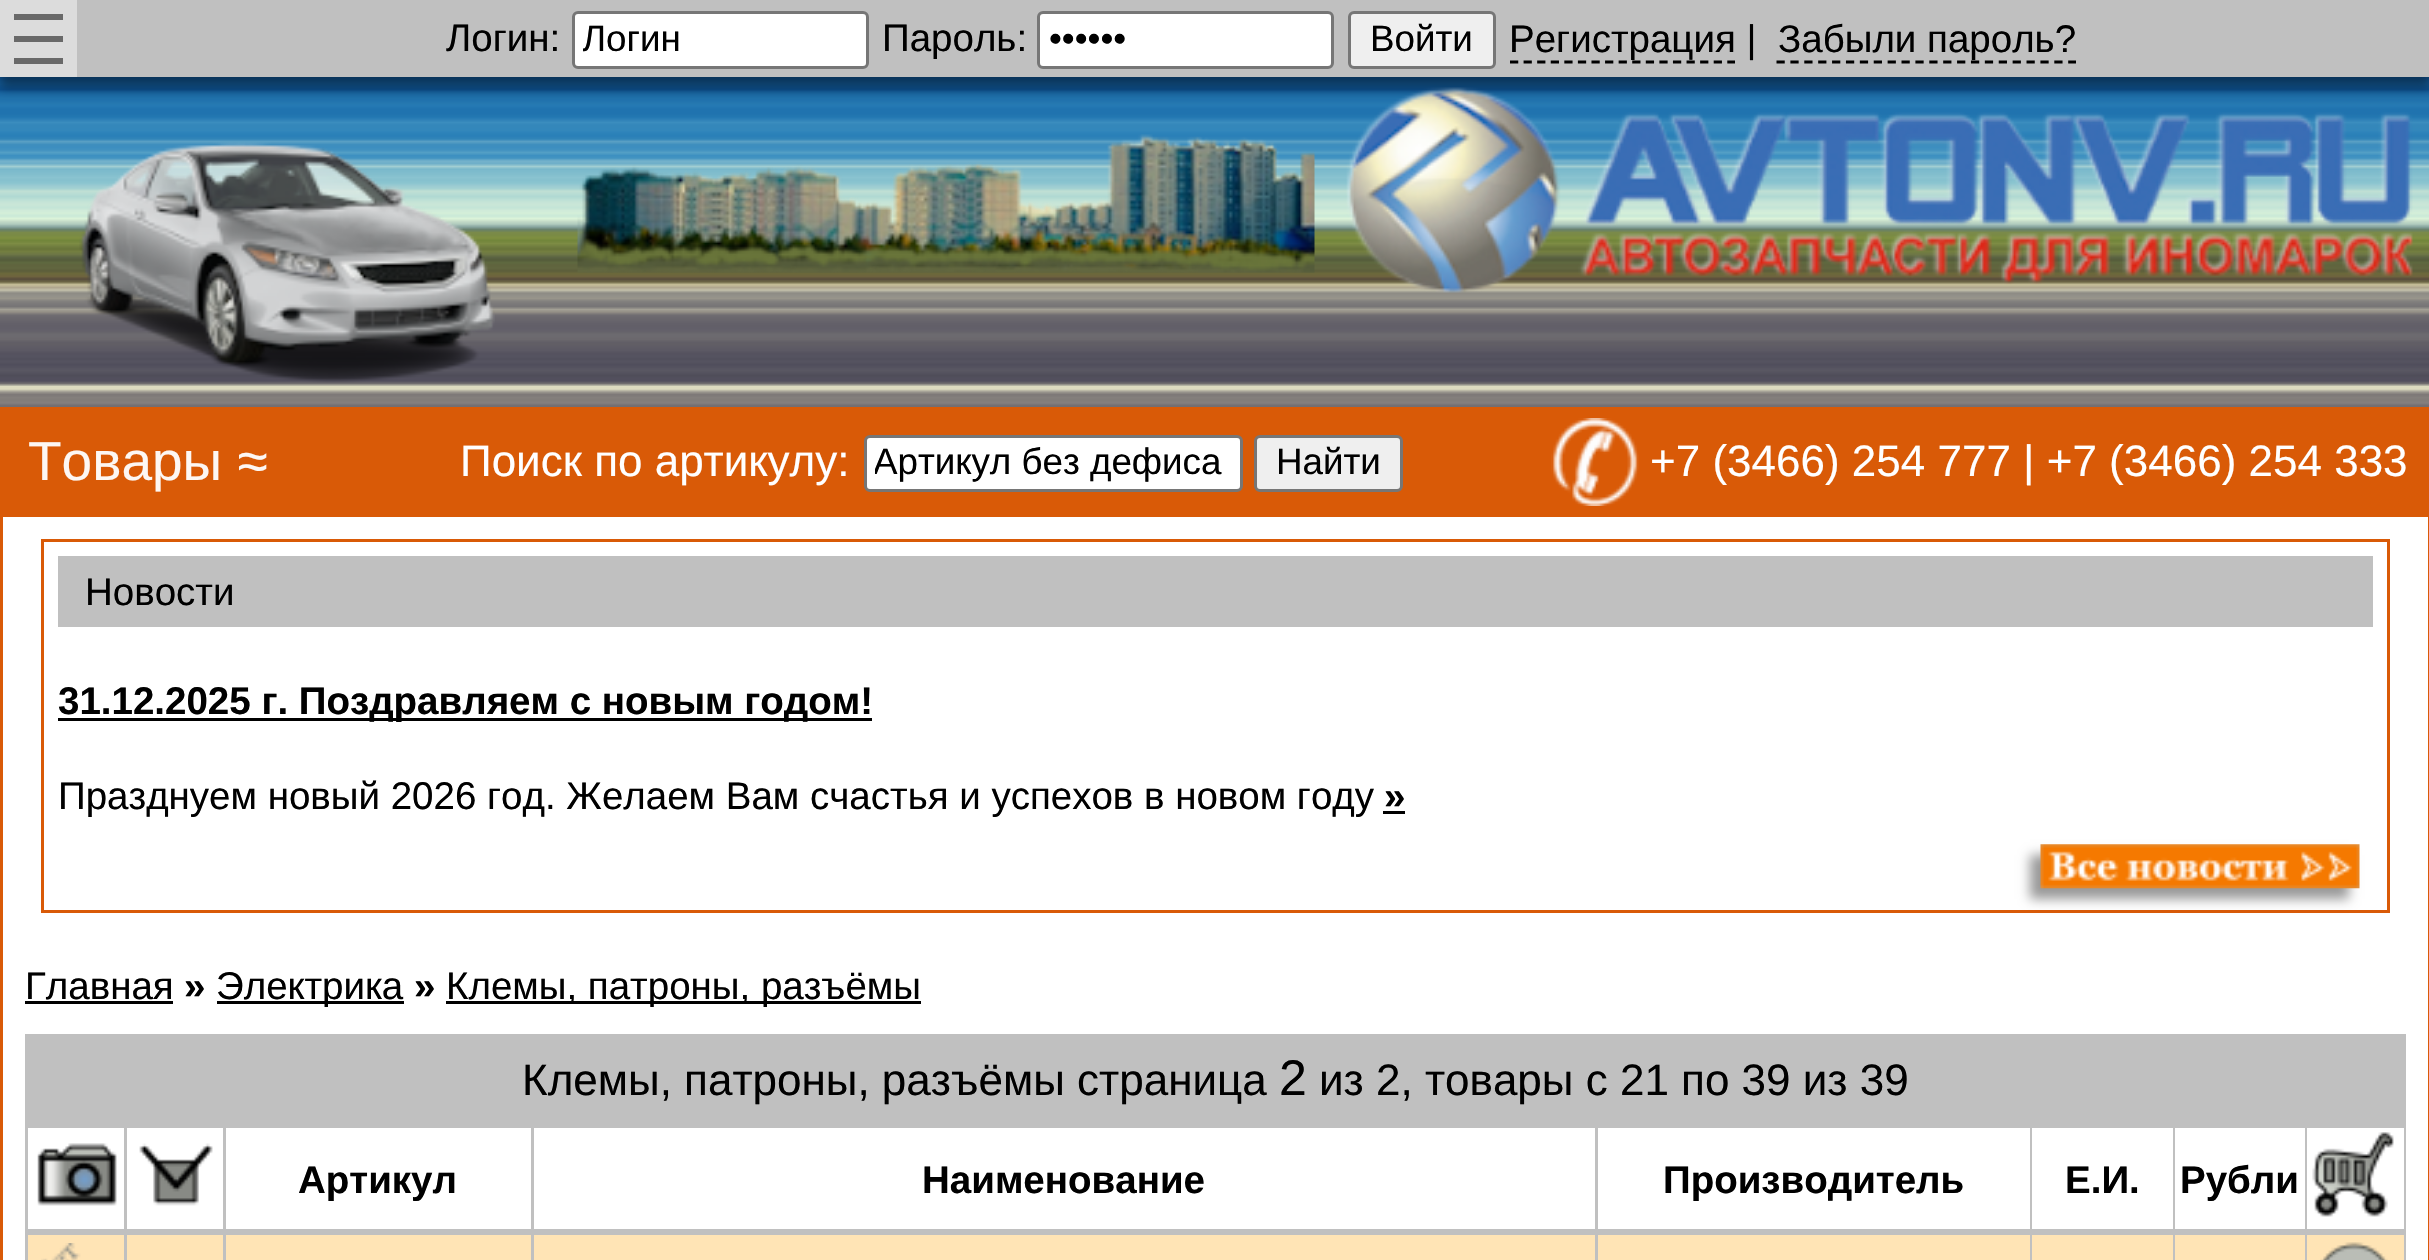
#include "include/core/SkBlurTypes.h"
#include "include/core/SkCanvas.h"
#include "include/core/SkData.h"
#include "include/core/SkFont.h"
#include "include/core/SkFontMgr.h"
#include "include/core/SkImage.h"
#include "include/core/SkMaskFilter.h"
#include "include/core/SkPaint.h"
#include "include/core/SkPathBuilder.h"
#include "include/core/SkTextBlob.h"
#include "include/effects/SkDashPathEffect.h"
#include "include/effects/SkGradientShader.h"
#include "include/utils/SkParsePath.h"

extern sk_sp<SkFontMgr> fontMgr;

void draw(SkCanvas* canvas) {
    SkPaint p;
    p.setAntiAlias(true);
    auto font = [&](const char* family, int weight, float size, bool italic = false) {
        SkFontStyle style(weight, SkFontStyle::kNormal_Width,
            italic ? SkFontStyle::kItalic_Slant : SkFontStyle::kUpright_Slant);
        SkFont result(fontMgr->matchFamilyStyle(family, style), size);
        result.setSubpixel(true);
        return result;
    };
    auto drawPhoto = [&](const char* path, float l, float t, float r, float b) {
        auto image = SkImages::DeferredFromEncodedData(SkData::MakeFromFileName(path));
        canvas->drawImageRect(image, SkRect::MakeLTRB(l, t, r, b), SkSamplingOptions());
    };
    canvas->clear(0xFFFFFFFF);
    drawPhoto("media/1.png", 0, 77, 2429, 407);
    drawPhoto("media/4.png", 1346, 87, 2413, 293);
    p.setColor(0x66000000);
    p.setMaskFilter(SkMaskFilter::MakeBlur(kNormal_SkBlurStyle, 5.5f));
    canvas->drawRect(SkRect::MakeLTRB(0, 11, 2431, 88), p);
    p.setMaskFilter(nullptr);
    {
        const struct { float l, t, r, b; SkColor color; } items[] = {
            {77, 0, 2429, 77, 0xFFC0C0C0},
            {0, 0, 77, 77, 0xFFDCDCDC},
            {14, 36, 63, 42, 0xFF696969},
            {14, 14, 63, 20, 0xFF696969},
            {14, 58, 63, 64, 0xFF696969},
        };
        for (auto [l, t, r, b, color] : items) {
            p.setColor(color);
            canvas->drawRect(SkRect::MakeLTRB(l, t, r, b), p);
        }
    }
    auto font1 = font("Liberation Sans", 400, 38.5f);
    p.setColor(0xFF000000);
    canvas->drawString("Логин:", 446, 51, font1, p);
    p.setColor(0xFFFFFFFF);
    canvas->drawRoundRect(SkRect::MakeLTRB(573.5f, 12.5f, 867.5f, 67.5f), 4.5f, 4.5f, p);
    p.setStyle(SkPaint::kStroke_Style);
    p.setStrokeWidth(3);
    p.setColor(0xFF767676);
    canvas->drawRoundRect(SkRect::MakeLTRB(573.5f, 12.5f, 867.5f, 67.5f), 4.5f, 4.5f, p);
    canvas->save();
    canvas->clipRect(SkRect::MakeLTRB(583, 19, 858, 61));
    auto font2 = font("Liberation Sans", 400, 36.75f);
    p.setStyle(SkPaint::kFill_Style);
    p.setColor(0xFF000000);
    canvas->drawString("Логин", 582, 51, font2, p);
    canvas->restore();
    canvas->drawString("Пароль:", 882, 51, font1, p);
    p.setColor(0xFFFFFFFF);
    canvas->drawRoundRect(SkRect::MakeLTRB(1038.5f, 12.5f, 1332.5f, 67.5f), 4.5f, 4.5f, p);
    p.setStyle(SkPaint::kStroke_Style);
    p.setColor(0xFF767676);
    canvas->drawRoundRect(SkRect::MakeLTRB(1038.5f, 12.5f, 1332.5f, 67.5f), 4.5f, 4.5f, p);
    p.setStyle(SkPaint::kFill_Style);
    p.setColor(0xFF000000);
    canvas->drawString("••••••", 1049, 51, font2, p);
    p.setColor(0xFFEFEFEF);
    canvas->drawRoundRect(SkRect::MakeLTRB(1349.5f, 12.5f, 1494.5f, 67.5f), 4.5f, 4.5f, p);
    p.setStyle(SkPaint::kStroke_Style);
    p.setColor(0xFF767676);
    canvas->drawRoundRect(SkRect::MakeLTRB(1349.5f, 12.5f, 1494.5f, 67.5f), 4.5f, 4.5f, p);
    p.setStyle(SkPaint::kFill_Style);
    p.setColor(0xFF000000);
    canvas->drawString("Войти", 1370, 51, font2, p);
    p.setStyle(SkPaint::kStroke_Style);
    p.setStrokeWidth(2.8f);
    p.setPathEffect(SkDashPathEffect::Make({{8.25f, 5.33f}}, 0));
    canvas->drawPath(SkPathBuilder().moveTo(1510, 62).lineTo(1735, 62).detach(), p);
    p.setPathEffect(nullptr);
    p.setStyle(SkPaint::kFill_Style);
    canvas->drawString("Регистрация |", 1509, 52, font1, p);
    canvas->drawString("Забыли пароль?", 1778, 52, font1, p);
    p.setStyle(SkPaint::kStroke_Style);
    p.setPathEffect(SkDashPathEffect::Make({{8.25f, 5.64f}}, 0));
    canvas->drawPath(SkPathBuilder().moveTo(1776.5f, 62).lineTo(2076, 62).detach(), p);
    p.setPathEffect(nullptr);
    drawPhoto("media/2.png", 79, 142, 495, 383);
    drawPhoto("media/3.png", 577, 134, 1315, 273);
    p.setStyle(SkPaint::kFill_Style);
    {
        const struct { float l, t, r, b; SkColor color; } items[] = {
            {2428, 512, 2429, 1260, 0xFFD95A07},
            {0, 512, 3, 1260, 0xFFD95A07},
            {0, 407, 2429, 517, 0xFFD95A07},
        };
        for (auto [l, t, r, b, color] : items) {
            p.setColor(color);
            canvas->drawRect(SkRect::MakeLTRB(l, t, r, b), p);
        }
    }
    auto font3 = font("Liberation Sans", 400, 55);
    p.setColor(0xFFFDF7F3);
    canvas->drawString("Товары ≈", 28, 480, font3, p);
    auto font4 = font("Liberation Sans", 400, 44);
    p.setColor(0xFFFFFFFF);
    canvas->drawString("Поиск по артикулу:", 460, 476, font4, p);
    canvas->drawRoundRect(SkRect::MakeLTRB(865.5f, 436.5f, 1241.5f, 490.5f), 4.5f, 4.5f, p);
    p.setStyle(SkPaint::kStroke_Style);
    p.setStrokeWidth(3);
    p.setColor(0xFF767676);
    canvas->drawRoundRect(SkRect::MakeLTRB(865.5f, 436.5f, 1241.5f, 490.5f), 4.5f, 4.5f, p);
    canvas->save();
    canvas->clipRect(SkRect::MakeLTRB(875, 443, 1232, 484));
    p.setStyle(SkPaint::kFill_Style);
    p.setColor(0xFF000000);
    canvas->drawString("Артикул без дефиса", 873, 474, font2, p);
    canvas->restore();
    p.setColor(0xFFEFEFEF);
    canvas->drawRoundRect(SkRect::MakeLTRB(1255.5f, 436.5f, 1401.5f, 490.5f), 4.5f, 4.5f, p);
    p.setStyle(SkPaint::kStroke_Style);
    p.setColor(0xFF767676);
    canvas->drawRoundRect(SkRect::MakeLTRB(1255.5f, 436.5f, 1401.5f, 490.5f), 4.5f, 4.5f, p);
    p.setStyle(SkPaint::kFill_Style);
    p.setColor(0xFF000000);
    canvas->drawString("Найти", 1276, 474, font2, p);
    drawPhoto("media/5.png", 1551, 418, 1639, 506);
    p.setColor(0xFFFFFFFF);
    canvas->drawString("+7 (3466) 254 777 | +7 (3466) 254 333", 1650, 476, font4, p);
    p.setStyle(SkPaint::kStroke_Style);
    p.setColor(0xFFD95A07);
    canvas->drawRect(SkRect::MakeLTRB(42.5f, 540.5f, 2388.5f, 911.5f), p);
    p.setStyle(SkPaint::kFill_Style);
    p.setColor(0xFFC0C0C0);
    canvas->drawRect(SkRect::MakeLTRB(58, 556, 2373, 627), p);
    p.setColor(0xFF000000);
    canvas->drawString("Новости", 85, 605, font1, p);
    canvas->drawRect(SkRect::MakeLTRB(58, 718, 872, 721), p);
    auto font5 = font("Liberation Sans", 700, 38.5f);
    canvas->drawString("31.12.2025 г. Поздравляем с новым годом!", 58, 714, font5, p);
    canvas->drawString("Празднуем новый 2026 год. Желаем Вам счастья и успехов в новом году", 58, 809, font1, p);
    canvas->drawString("»", 1384, 809, font5, p);
    canvas->drawRect(SkRect::MakeLTRB(1383, 811, 1405, 814), p);
    p.setColor(0x66000000);
    p.setMaskFilter(SkMaskFilter::MakeBlur(kNormal_SkBlurStyle, 5.5f));
    canvas->drawRect(SkRect::MakeLTRB(2030, 855, 2349, 899), p);
    p.setMaskFilter(nullptr);
    drawPhoto("media/6.png", 2040, 844, 2360, 889);
    p.setColor(0xFF000000);
    canvas->drawString("Главная", 25, 999, font1, p);
    canvas->drawRect(SkRect::MakeLTRB(25, 1001, 173, 1004), p);
    canvas->drawString("»", 184, 999, font5, p);
    canvas->drawRect(SkRect::MakeLTRB(217, 1001, 404, 1004), p);
    canvas->drawString("Электрика", 216, 999, font1, p);
    canvas->drawString("»", 414, 999, font5, p);
    canvas->drawRect(SkRect::MakeLTRB(446, 1001, 921, 1004), p);
    canvas->drawString("Клемы, патроны, разъёмы", 446, 999, font1, p);
    p.setColor(0xFFC0C0C0);
    canvas->drawRect(SkRect::MakeLTRB(25, 1034, 2406, 1260), p);
    p.setColor(0xFF000000);
    canvas->drawString("Клемы, патроны, разъёмы страница", 522, 1095, font4, p);
    auto font6 = font("Liberation Sans", 400, 50);
    canvas->drawString("2", 1279, 1095, font6, p);
    canvas->drawString("из 2, товары с 21 по 39 из 39", 1319, 1095, font4, p);
    p.setColor(0xFFFFFFFF);
    canvas->drawRect(SkRect::MakeLTRB(28, 1128, 124, 1229), p);
    drawPhoto("media/7.png", 37, 1143, 117, 1206);
    canvas->drawRect(SkRect::MakeLTRB(127, 1128, 223, 1229), p);
    drawPhoto("media/8.png", 139, 1143, 213, 1206);
    canvas->drawRect(SkRect::MakeLTRB(226, 1128, 531, 1229), p);
    p.setColor(0xFF000000);
    canvas->drawString("Артикул", 298, 1193, font5, p);
    p.setColor(0xFFFFFFFF);
    canvas->drawRect(SkRect::MakeLTRB(534, 1128, 1595, 1229), p);
    p.setColor(0xFF000000);
    canvas->drawString("Наименование", 922, 1193, font5, p);
    p.setColor(0xFFFFFFFF);
    canvas->drawRect(SkRect::MakeLTRB(1598, 1128, 2030, 1229), p);
    p.setColor(0xFF000000);
    canvas->drawString("Производитель", 1663, 1193, font5, p);
    p.setColor(0xFFFFFFFF);
    canvas->drawRect(SkRect::MakeLTRB(2032, 1128, 2173, 1229), p);
    p.setColor(0xFF000000);
    canvas->drawString("Е.И.", 2065, 1193, font5, p);
    p.setColor(0xFFFFFFFF);
    canvas->drawRect(SkRect::MakeLTRB(2175, 1128, 2305, 1229), p);
    p.setColor(0xFF000000);
    canvas->drawString("Рубли", 2180, 1193, font5, p);
    p.setColor(0xFFFFFFFF);
    canvas->drawRect(SkRect::MakeLTRB(2307, 1128, 2404, 1229), p);
    drawPhoto("media/9.png", 2312, 1132, 2394, 1217);
    p.setColor(0xFFFFE4B5);
    canvas->drawRect(SkRect::MakeLTRB(28, 1235, 124, 1260), p);
    drawPhoto("media/10.png", 41, 1243, 81, 1260);
    {
        const struct { float l, t, r, b; SkColor color; } items[] = {
            {127, 1235, 223, 1260, 0xFFFFE4B5},
            {226, 1235, 531, 1260, 0xFFFFE4B5},
            {534, 1235, 1595, 1260, 0xFFFFE4B5},
            {1598, 1235, 2030, 1260, 0xFFFFE4B5},
            {2032, 1235, 2173, 1260, 0xFFFFE4B5},
            {2175, 1235, 2305, 1260, 0xFFFFE4B5},
            {2307, 1235, 2404, 1260, 0xFFFFE4B5},
        };
        for (auto [l, t, r, b, color] : items) {
            p.setColor(color);
            canvas->drawRect(SkRect::MakeLTRB(l, t, r, b), p);
        }
    }
    drawPhoto("media/11.png", 2320, 1242, 2388, 1260);
}
